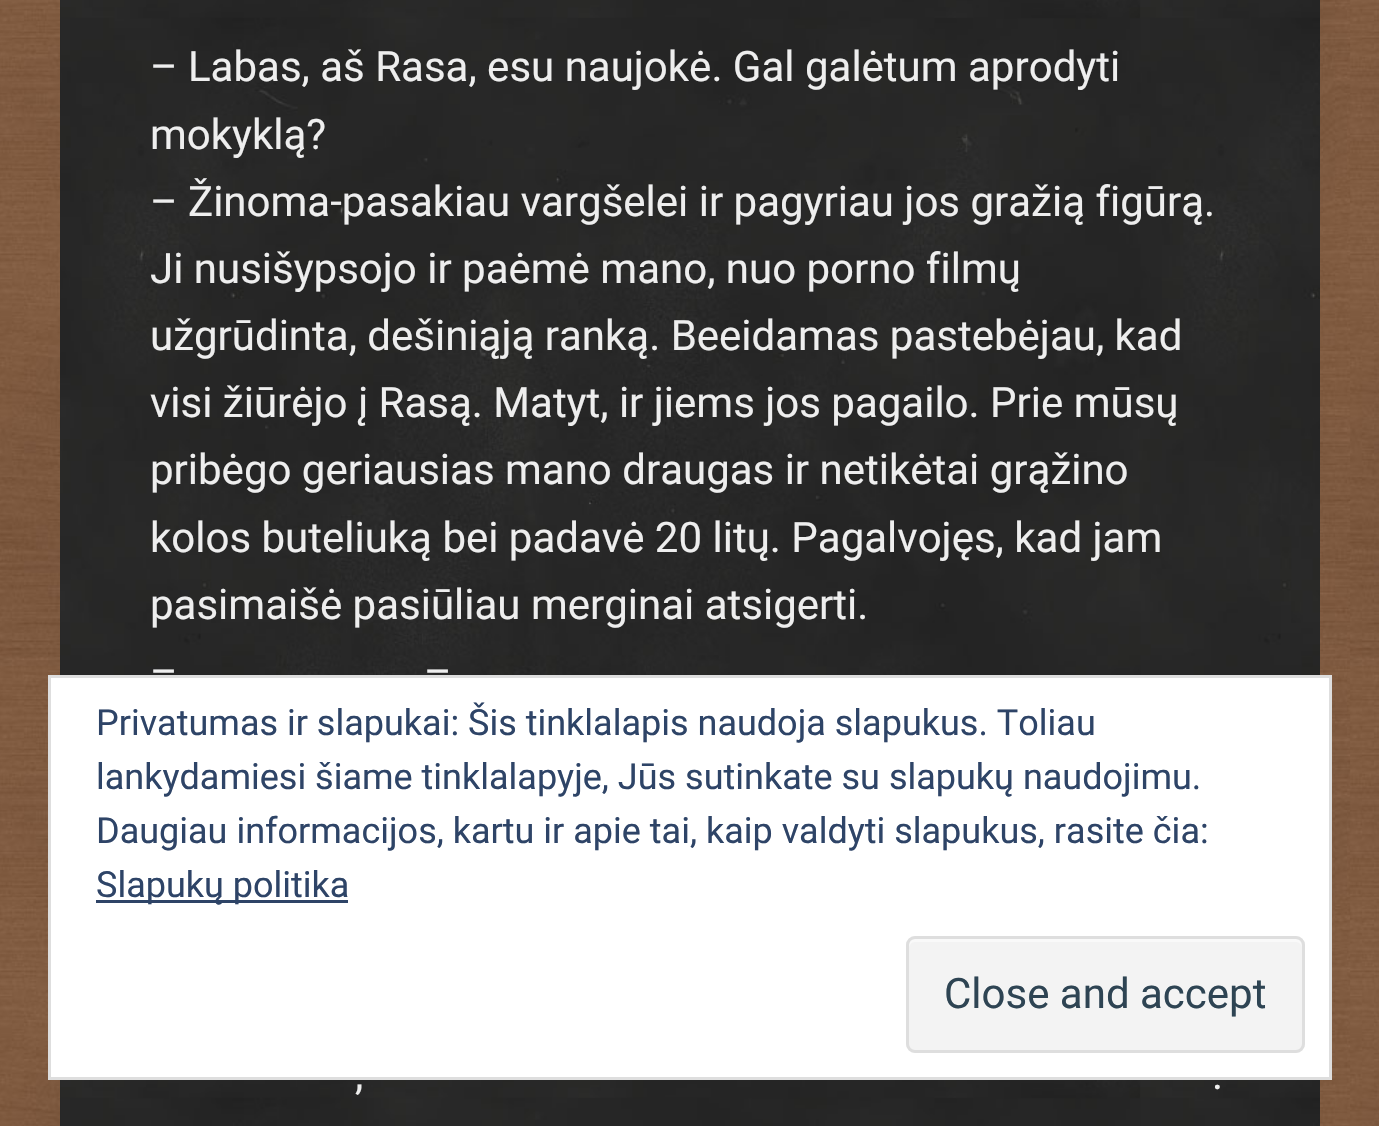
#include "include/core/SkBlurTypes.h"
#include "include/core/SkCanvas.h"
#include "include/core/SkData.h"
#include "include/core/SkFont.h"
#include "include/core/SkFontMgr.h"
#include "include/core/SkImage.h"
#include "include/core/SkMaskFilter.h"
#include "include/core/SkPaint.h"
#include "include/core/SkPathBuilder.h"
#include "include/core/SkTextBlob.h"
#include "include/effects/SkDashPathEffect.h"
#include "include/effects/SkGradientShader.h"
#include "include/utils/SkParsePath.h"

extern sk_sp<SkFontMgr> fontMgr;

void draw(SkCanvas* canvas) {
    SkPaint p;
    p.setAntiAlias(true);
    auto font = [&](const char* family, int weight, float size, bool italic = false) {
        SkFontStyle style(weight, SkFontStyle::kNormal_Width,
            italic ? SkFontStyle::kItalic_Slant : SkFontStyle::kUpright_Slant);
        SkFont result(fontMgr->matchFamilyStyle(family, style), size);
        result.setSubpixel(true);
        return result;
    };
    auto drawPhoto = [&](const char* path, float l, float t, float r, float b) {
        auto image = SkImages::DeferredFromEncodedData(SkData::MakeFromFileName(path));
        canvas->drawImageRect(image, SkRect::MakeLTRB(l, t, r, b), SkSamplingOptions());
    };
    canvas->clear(0xFFFFFFFF);
    drawPhoto("media/1.png", 0, 0, 1379, 1126);
    drawPhoto("media/2.png", 60, 0, 1320, 1126);
    auto font1 = font("Roboto", 400, 42);
    p.setColor(0xFFEEEEEE);
    {
        const struct { const char* s; float x, y; } items[] = {
            {"– Labas, aš Rasa, esu naujokė. Gal galėtum aprodyti", 150, 81},
            {"mokyklą?", 150, 149},
            {"– Žinoma-pasakiau vargšelei ir pagyriau jos gražią figūrą.", 150, 216},
            {"Ji nusišypsojo ir paėmė mano, nuo porno filmų", 150, 283},
            {"užgrūdinta, dešiniąją ranką. Beeidamas pastebėjau, kad", 150, 350},
            {"visi žiūrėjo į Rasą. Matyt, ir jiems jos pagailo. Prie mūsų", 150, 417},
            {"pribėgo geriausias mano draugas ir netikėtai grąžino", 150, 484},
            {"kolos buteliuką bei padavė 20 litų. Pagalvojęs, kad jam", 150, 552},
            {"pasimaišė pasiūliau merginai atsigerti.", 150, 619},
            {"–", 150, 686},
            {"–", 424, 686},
            {",", 355, 1089},
            {".", 1212, 1089},
        };
        for (auto [s, x, y] : items) {
            canvas->drawString(s, x, y, font1, p);
        }
    }
    p.setColor(0xFFFFFFFF);
    canvas->drawRect(SkRect::MakeLTRB(49.5f, 676.5f, 1330.5f, 1078.5f), p);
    p.setStyle(SkPaint::kStroke_Style);
    p.setStrokeWidth(3);
    p.setColor(0xFFDEDEDE);
    canvas->drawRect(SkRect::MakeLTRB(49.5f, 676.5f, 1330.5f, 1078.5f), p);
    auto font2 = font("Roboto", 400, 36);
    p.setStyle(SkPaint::kFill_Style);
    p.setColor(0xFF2E4467);
    {
        const struct { const char* s; float x, y; } items[] = {
            {"Privatumas ir slapukai: Šis tinklalapis naudoja slapukus. Toliau", 96, 735},
            {"lankydamiesi šiame tinklalapyje, Jūs sutinkate su slapukų naudojimu.", 96, 789},
            {"Daugiau informacijos, kartu ir apie tai, kaip valdyti slapukus, rasite čia:", 96, 843},
        };
        for (auto [s, x, y] : items) {
            canvas->drawString(s, x, y, font2, p);
        }
    }
    canvas->drawRect(SkRect::MakeLTRB(96, 900, 348, 903), p);
    canvas->drawString("Slapukų politika", 96, 897, font2, p);
    p.setColor(0xFFF3F3F3);
    canvas->drawRoundRect(SkRect::MakeLTRB(906, 936, 1305, 1053), 9, 9, p);
    p.setColor(0xFFF9F9F9);
    canvas->drawPath(SkPathBuilder().moveTo(915, 942).lineTo(1296, 942).cubicTo(1299, 942, 1302, 945, 1302, 948).cubicTo(1302, 944, 1301, 939, 1296, 939).lineTo(914, 939).cubicTo(909, 940, 909, 944, 909, 948).cubicTo(909, 945, 912, 942, 915, 942).close().detach(), p);
    p.setStyle(SkPaint::kStroke_Style);
    p.setColor(0xFFDEDEDE);
    canvas->drawRoundRect(SkRect::MakeLTRB(907.5f, 937.5f, 1303.5f, 1051.5f), 7.5f, 7.5f, p);
    p.setStyle(SkPaint::kFill_Style);
    p.setColor(0xFF2E4453);
    canvas->drawString("Close and accept", 944, 1008, font1, p);
}
